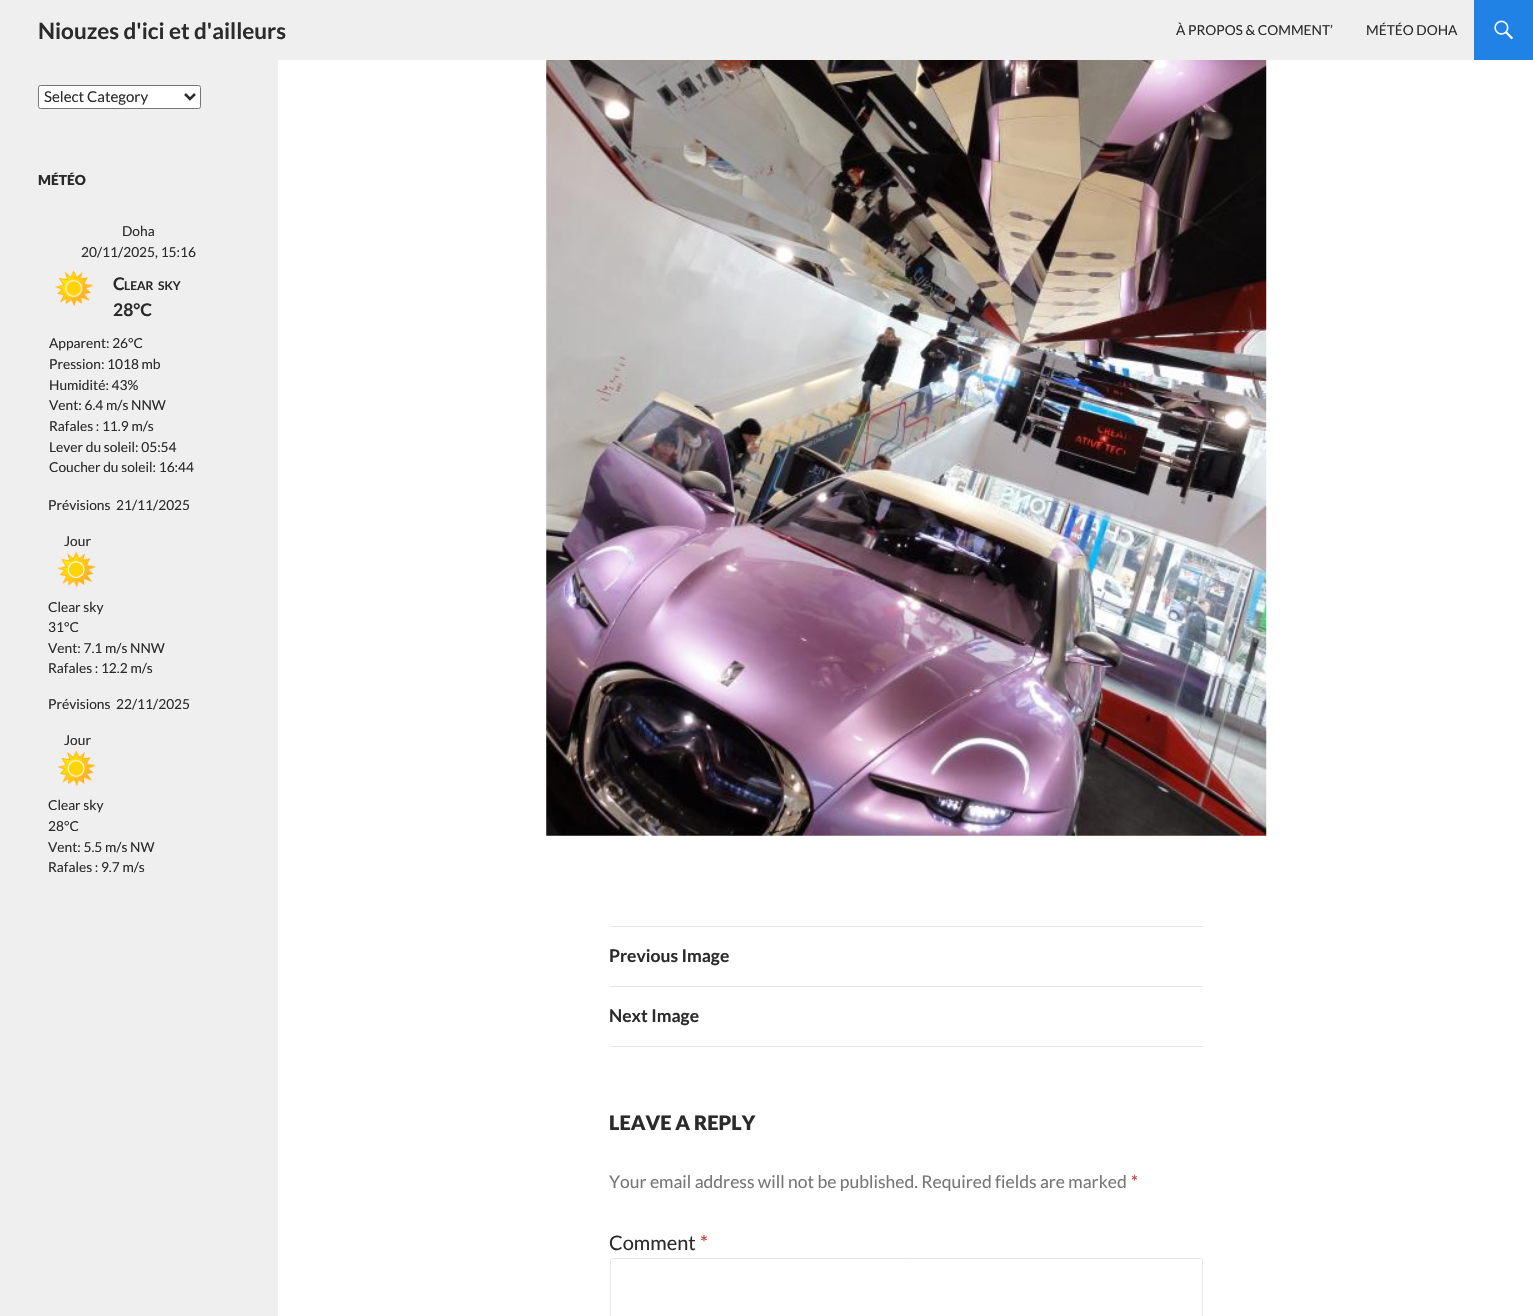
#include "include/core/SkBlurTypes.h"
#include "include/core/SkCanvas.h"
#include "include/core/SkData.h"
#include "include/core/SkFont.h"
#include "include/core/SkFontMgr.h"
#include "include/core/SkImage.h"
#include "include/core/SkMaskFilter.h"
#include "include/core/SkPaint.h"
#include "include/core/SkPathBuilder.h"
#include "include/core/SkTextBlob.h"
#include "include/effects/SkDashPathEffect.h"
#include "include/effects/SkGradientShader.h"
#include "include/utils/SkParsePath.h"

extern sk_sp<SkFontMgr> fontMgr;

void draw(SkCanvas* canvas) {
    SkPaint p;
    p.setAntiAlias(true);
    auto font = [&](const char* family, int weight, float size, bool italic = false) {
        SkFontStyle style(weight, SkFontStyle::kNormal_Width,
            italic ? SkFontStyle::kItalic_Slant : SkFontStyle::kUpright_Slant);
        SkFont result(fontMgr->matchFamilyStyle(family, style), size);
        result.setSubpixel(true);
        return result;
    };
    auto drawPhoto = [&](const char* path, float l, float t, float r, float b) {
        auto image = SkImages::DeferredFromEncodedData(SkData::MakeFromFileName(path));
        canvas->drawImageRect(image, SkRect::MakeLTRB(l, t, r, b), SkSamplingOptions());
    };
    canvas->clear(0xFFFFFFFF);
    p.setColor(0xFFEFEFEF);
    canvas->drawRect(SkRect::MakeLTRB(0, 0, 1474, 60), p);
    auto font1 = font("Lato", 700, 22.5f);
    p.setColor(0xFF2B2B2B);
    canvas->drawString("Niouzes d'ici et d'ailleurs", 38, 39, font1, p);
    auto font2 = font("Lato", 400, 13.75f);
    canvas->drawString("À PROPOS & COMMENT’", 1176, 35, font2, p);
    canvas->drawString("MÉTÉO DOHA", 1366, 35, font2, p);
    p.setColor(0xFF2082E5);
    canvas->drawRect(SkRect::MakeLTRB(1474, 0, 1533, 60), p);
    drawPhoto("media/1.png", 1494, 20, 1513, 40);
    p.setColor(0xFFEFEFEF);
    canvas->drawRect(SkRect::MakeLTRB(0, 60, 278, 1316), p);
    p.setColor(0xFFFFFFFF);
    canvas->drawRoundRect(SkRect::MakeLTRB(38.5f, 85.5f, 200.5f, 108.5f), 2, 2, p);
    p.setStyle(SkPaint::kStroke_Style);
    p.setStrokeWidth(1);
    p.setColor(0xFF767676);
    canvas->drawRoundRect(SkRect::MakeLTRB(38.5f, 85.5f, 200.5f, 108.5f), 2, 2, p);
    p.setStrokeWidth(2.5f);
    p.setColor(0xFF2B2B2B);
    canvas->drawPath(SkPathBuilder().moveTo(185, 94).lineTo(190, 99).lineTo(195, 94).detach(), p);
    auto font3 = font("Lato", 400, 15);
    p.setStyle(SkPaint::kFill_Style);
    canvas->drawString("Select Category", 44, 102, font3, p);
    auto font4 = font("Lato", 900, 13.75f);
    canvas->drawString("MÉTÉO", 38, 185, font4, p);
    canvas->drawString("Doha", 122, 236, font2, p);
    canvas->drawString("20/11/2025, 15:16", 81, 257, font2, p);
    drawPhoto("media/2.png", 54, 270, 94, 307);
    auto font5 = font("Lato", 700, 17.5f);
    canvas->drawString("C", 113, 290, font5, p);
    auto font6 = font("Lato", 700, 12);
    canvas->drawString("LEAR", 124, 290, font6, p);
    canvas->drawString("SKY", 158, 290, font6, p);
    canvas->drawString("28°C", 113, 316, font5, p);
    {
        const struct { const char* s; float x, y; } items[] = {
            {"Apparent: 26°C", 49, 348},
            {"Pression: 1018 mb", 49, 369},
            {"Humidité: 43%", 49, 390},
            {"Vent: 6.4 m/s NNW", 49, 410},
            {"Rafales : 11.9 m/s", 49, 431},
            {"Lever du soleil: 05:54", 49, 452},
            {"Coucher du soleil: 16:44", 49, 472},
            {"Prévisions", 48, 510},
            {"21/11/2025", 116, 510},
            {"Jour", 64, 546},
        };
        for (auto [s, x, y] : items) {
            canvas->drawString(s, x, y, font2, p);
        }
    }
    drawPhoto("media/3.png", 57, 551, 97, 589);
    {
        const struct { const char* s; float x, y; } items[] = {
            {"Clear sky", 48, 612},
            {"31°C", 48, 632},
            {"Vent: 7.1 m/s NNW", 48, 653},
            {"Rafales : 12.2 m/s", 48, 673},
            {"Prévisions", 48, 709},
            {"22/11/2025", 116, 709},
            {"Jour", 64, 745},
        };
        for (auto [s, x, y] : items) {
            canvas->drawString(s, x, y, font2, p);
        }
    }
    drawPhoto("media/4.png", 57, 750, 97, 787);
    {
        const struct { const char* s; float x, y; } items[] = {
            {"Clear sky", 48, 810},
            {"28°C", 48, 831},
            {"Vent: 5.5 m/s NW", 48, 852},
            {"Rafales : 9.7 m/s", 48, 872},
        };
        for (auto [s, x, y] : items) {
            canvas->drawString(s, x, y, font2, p);
        }
    }
    drawPhoto("media/5.png", 546, 60, 1267, 836);
    p.setColor(0xFFE6E6E6);
    canvas->drawRect(SkRect::MakeLTRB(610, 926, 1203, 927), p);
    canvas->drawRect(SkRect::MakeLTRB(610, 986, 1203, 987), p);
    p.setColor(0xFF2B2B2B);
    canvas->drawString("Previous Image", 609, 962, font5, p);
    p.setColor(0xFFE6E6E6);
    canvas->drawRect(SkRect::MakeLTRB(610, 1046, 1203, 1047), p);
    p.setColor(0xFF2B2B2B);
    canvas->drawString("Next Image", 609, 1022, font5, p);
    auto font7 = font("Lato", 900, 20);
    canvas->drawString("LEAVE A REPLY", 609, 1130, font7, p);
    auto font8 = font("Lato", 400, 17.5f);
    p.setColor(0xFF767676);
    canvas->drawString("Your email address will not be published. Required fields are marked", 609, 1188, font8, p);
    p.setColor(0xFFC0392B);
    canvas->drawString("*", 1131, 1188, font8, p);
    auto font9 = font("Lato", 400, 20);
    p.setColor(0xFF2B2B2B);
    canvas->drawString("Comment", 609, 1250, font9, p);
    p.setColor(0xFFC0392B);
    canvas->drawString("*", 700, 1250, font9, p);
    p.setStyle(SkPaint::kStroke_Style);
    p.setStrokeWidth(1);
    p.setColor(0xFFE6E6E6);
    canvas->drawRoundRect(SkRect::MakeLTRB(610.5f, 1258.5f, 1202.5f, 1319.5f), 2, 2, p);
}
